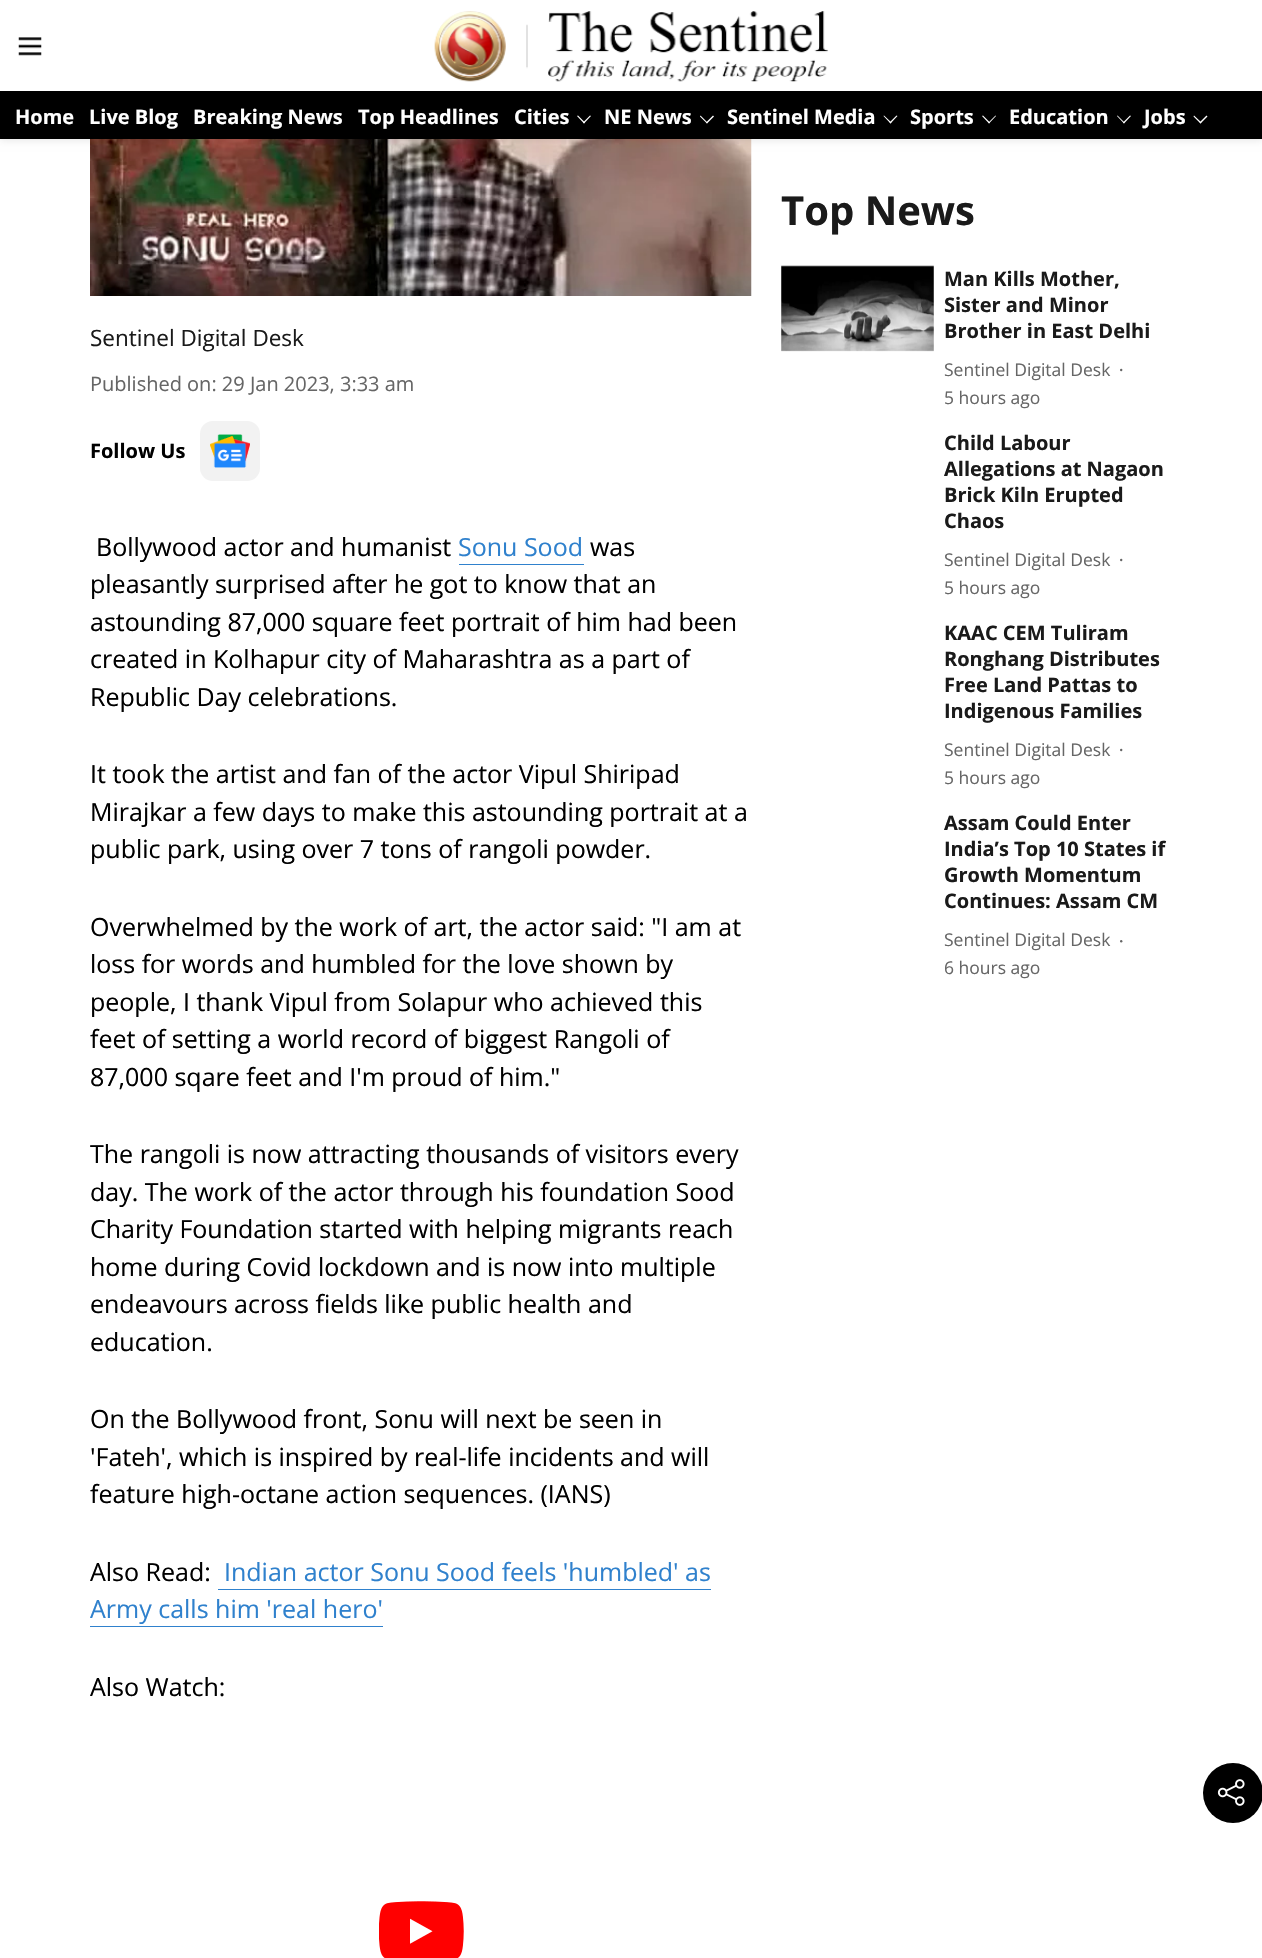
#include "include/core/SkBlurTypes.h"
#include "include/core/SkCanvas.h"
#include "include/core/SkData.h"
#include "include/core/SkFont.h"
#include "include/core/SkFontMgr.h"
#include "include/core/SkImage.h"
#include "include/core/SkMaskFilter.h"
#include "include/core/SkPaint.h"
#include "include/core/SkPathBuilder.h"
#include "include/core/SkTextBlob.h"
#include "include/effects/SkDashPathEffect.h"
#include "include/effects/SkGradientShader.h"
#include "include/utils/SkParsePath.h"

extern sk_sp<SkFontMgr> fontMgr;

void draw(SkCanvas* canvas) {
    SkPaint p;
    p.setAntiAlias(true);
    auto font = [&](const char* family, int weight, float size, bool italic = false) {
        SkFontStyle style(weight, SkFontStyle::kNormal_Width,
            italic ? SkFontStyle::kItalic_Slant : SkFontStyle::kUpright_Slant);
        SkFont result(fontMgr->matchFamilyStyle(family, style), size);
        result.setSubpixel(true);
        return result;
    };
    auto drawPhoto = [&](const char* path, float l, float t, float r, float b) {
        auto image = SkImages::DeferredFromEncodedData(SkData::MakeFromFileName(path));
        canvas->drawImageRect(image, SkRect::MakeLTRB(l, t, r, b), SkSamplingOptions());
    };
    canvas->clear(0xFFFFFFFF);
    drawPhoto("media/3.png", 90, 139, 752, 296);
    p.setColor(0x1A000000);
    p.setMaskFilter(SkMaskFilter::MakeBlur(kNormal_SkBlurStyle, 4));
    canvas->drawRect(SkRect::MakeLTRB(0, 1, 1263, 140), p);
    p.setMaskFilter(nullptr);
    p.setColor(0xFFFFFFFF);
    canvas->drawRect(SkRect::MakeLTRB(0, 0, 1262, 91), p);
    drawPhoto("media/1.png", 18, 37, 42, 56);
    drawPhoto("media/2.png", 434, 11, 829, 82);
    p.setColor(0xFF000000);
    canvas->drawRect(SkRect::MakeLTRB(0, 91, 1262, 139), p);
    auto font1 = font("Open Sans", 700, 20);
    p.setColor(0xFFFFFFFF);
    {
        const struct { const char* s; float x, y; } items[] = {
            {"Home", 15, 124},
            {"Live Blog", 89, 124},
            {"Breaking News", 193, 124},
            {"Top Headlines", 358, 124},
            {"Cities", 514, 124},
        };
        for (auto [s, x, y] : items) {
            canvas->drawString(s, x, y, font1, p);
        }
    }
    canvas->drawPath(SkPathBuilder().moveTo(590, 115.5f).lineTo(591, 116).lineTo(584, 123.5f).lineTo(583, 122.5f).close().detach(), p);
    canvas->drawPath(SkPathBuilder().moveTo(578, 115.5f).lineTo(585, 122.5f).lineTo(584, 123.5f).lineTo(577, 116).close().detach(), p);
    canvas->drawString("NE News", 604, 124, font1, p);
    canvas->drawPath(SkPathBuilder().moveTo(713, 115.5f).lineTo(714, 116.5f).lineTo(707, 123.5f).lineTo(706, 122.5f).close().detach(), p);
    canvas->drawPath(SkPathBuilder().moveTo(700.5f, 115.5f).lineTo(707.5f, 122.5f).lineTo(707, 123.5f).lineTo(700, 116.5f).close().detach(), p);
    canvas->drawString("Sentinel Media", 727, 124, font1, p);
    canvas->drawPath(SkPathBuilder().moveTo(896.5f, 115.5f).lineTo(897.5f, 116).lineTo(890.5f, 123.5f).lineTo(889.5f, 122.5f).close().detach(), p);
    canvas->drawPath(SkPathBuilder().moveTo(884, 115.5f).lineTo(891.5f, 122.5f).lineTo(890.5f, 123.5f).lineTo(883.5f, 116).close().detach(), p);
    canvas->drawString("Sports", 910, 124, font1, p);
    canvas->drawPath(SkPathBuilder().moveTo(995.5f, 115.5f).lineTo(996, 116).lineTo(989, 123.5f).lineTo(988.5f, 122.5f).close().detach(), p);
    canvas->drawPath(SkPathBuilder().moveTo(983, 115.5f).lineTo(990, 122.5f).lineTo(989, 123.5f).lineTo(982, 116).close().detach(), p);
    canvas->drawString("Education", 1009, 124, font1, p);
    canvas->drawPath(SkPathBuilder().moveTo(1130, 115.5f).lineTo(1131, 116).lineTo(1124, 123.5f).lineTo(1123, 122.5f).close().detach(), p);
    canvas->drawPath(SkPathBuilder().moveTo(1117.5f, 115.5f).lineTo(1124.5f, 122.5f).lineTo(1124, 123.5f).lineTo(1117, 116).close().detach(), p);
    canvas->drawString("Jobs", 1144, 124, font1, p);
    canvas->drawPath(SkPathBuilder().moveTo(1206.5f, 115.5f).lineTo(1207.5f, 116.5f).lineTo(1200.5f, 123.5f).lineTo(1199.5f, 122.5f).close().detach(), p);
    canvas->drawPath(SkPathBuilder().moveTo(1194, 115.5f).lineTo(1201.5f, 122.5f).lineTo(1200.5f, 123.5f).lineTo(1193.5f, 116.5f).close().detach(), p);
    auto font2 = font("Open Sans", 700, 40);
    p.setColor(0xFF1A1A1A);
    canvas->drawString("Top News", 781, 225, font2, p);
    p.setColor(0xFFF0F0F0);
    canvas->drawRect(SkRect::MakeLTRB(781, 266, 934, 351), p);
    drawPhoto("media/4.png", 781, 265, 934, 352);
    p.setColor(0xFF1A1A1A);
    {
        const struct { const char* s; float x, y; } items[] = {
            {"Man Kills Mother,", 944, 286},
            {"Sister and Minor", 944, 312},
            {"Brother in East Delhi", 944, 338},
        };
        for (auto [s, x, y] : items) {
            canvas->drawString(s, x, y, font1, p);
        }
    }
    auto font3 = font("Open Sans", 400, 17.5f);
    p.setColor(0xFF666666);
    canvas->drawString("Sentinel Digital Desk", 944, 376, font3, p);
    canvas->drawCircle(1121.2f, 370, 1.2f, p);
    canvas->drawString("5 hours ago", 944, 404, font3, p);
    p.setColor(0xFF1A1A1A);
    {
        const struct { const char* s; float x, y; } items[] = {
            {"Child Labour", 944, 450},
            {"Allegations at Nagaon", 944, 476},
            {"Brick Kiln Erupted", 944, 502},
            {"Chaos", 944, 528},
        };
        for (auto [s, x, y] : items) {
            canvas->drawString(s, x, y, font1, p);
        }
    }
    p.setColor(0xFF666666);
    canvas->drawString("Sentinel Digital Desk", 944, 566, font3, p);
    canvas->drawCircle(1121.2f, 560, 1.2f, p);
    canvas->drawString("5 hours ago", 944, 594, font3, p);
    p.setColor(0xFF1A1A1A);
    {
        const struct { const char* s; float x, y; } items[] = {
            {"KAAC CEM Tuliram", 944, 640},
            {"Ronghang Distributes", 944, 666},
            {"Free Land Pattas to", 944, 692},
            {"Indigenous Families", 944, 718},
        };
        for (auto [s, x, y] : items) {
            canvas->drawString(s, x, y, font1, p);
        }
    }
    p.setColor(0xFF666666);
    canvas->drawString("Sentinel Digital Desk", 944, 756, font3, p);
    canvas->drawCircle(1121.2f, 750, 1.2f, p);
    canvas->drawString("5 hours ago", 944, 784, font3, p);
    p.setColor(0xFF1A1A1A);
    {
        const struct { const char* s; float x, y; } items[] = {
            {"Assam Could Enter", 944, 830},
            {"India’s Top 10 States if", 944, 856},
            {"Growth Momentum", 944, 882},
            {"Continues: Assam CM", 944, 908},
        };
        for (auto [s, x, y] : items) {
            canvas->drawString(s, x, y, font1, p);
        }
    }
    p.setColor(0xFF666666);
    canvas->drawString("Sentinel Digital Desk", 944, 946, font3, p);
    canvas->drawCircle(1121.2f, 941.2f, 1.2f, p);
    canvas->drawString("6 hours ago", 944, 974, font3, p);
    auto font4 = font("Open Sans", 400, 22.5f);
    p.setColor(0xFF1A1A1A);
    canvas->drawString("Sentinel Digital Desk", 90, 346, font4, p);
    auto font5 = font("Open Sans", 400, 20);
    p.setColor(0xFF666666);
    canvas->drawString("Published on: 29 Jan 2023, 3:33 am", 90, 391, font5, p);
    p.setColor(0xFF000000);
    canvas->drawString("Follow Us", 90, 458, font1, p);
    p.setColor(0xFFF2F2F2);
    canvas->drawRoundRect(SkRect::MakeLTRB(200, 421, 260, 481), 13, 13, p);
    drawPhoto("media/5.png", 210, 434, 250, 468);
    p.setColor(0xFF000000);
    canvas->drawCircle(1233, 1793, 30, p);
    drawPhoto("media/6.png", 1217, 1779, 1245, 1806);
    auto font6 = font("Open Sans", 400, 25);
    canvas->drawString("Bollywood actor and humanist", 96, 556, font6, p);
    p.setColor(0xFF2F81CD);
    canvas->drawString("Sonu Sood", 458, 556, font6, p);
    canvas->drawRect(SkRect::MakeLTRB(459, 564, 584, 565), p);
    p.setColor(0xFF000000);
    {
        const struct { const char* s; float x, y; } items[] = {
            {"was", 590, 556},
            {"pleasantly surprised after he got to know that an", 90, 593},
            {"astounding 87,000 square feet portrait of him had been", 90, 631},
            {"created in Kolhapur city of Maharashtra as a part of", 90, 668},
            {"Republic Day celebrations.", 90, 706},
            {"It took the artist and fan of the actor Vipul Shiripad", 90, 783},
            {"Mirajkar a few days to make this astounding portrait at a", 90, 821},
            {"public park, using over 7 tons of rangoli powder.", 90, 858},
            {"Overwhelmed by the work of art, the actor said: \"I am at", 90, 936},
            {"loss for words and humbled for the love shown by", 90, 973},
            {"people, I thank Vipul from Solapur who achieved this", 90, 1011},
            {"feet of setting a world record of biggest Rangoli of", 90, 1048},
            {"87,000 sqare feet and I'm proud of him.\"", 90, 1086},
            {"The rangoli is now attracting thousands of visitors every", 90, 1163},
            {"day. The work of the actor through his foundation Sood", 90, 1201},
            {"Charity Foundation started with helping migrants reach", 90, 1238},
            {"home during Covid lockdown and is now into multiple", 90, 1276},
            {"endeavours across fields like public health and", 90, 1313},
            {"education.", 90, 1351},
            {"On the Bollywood front, Sonu will next be seen in", 90, 1428},
            {"'Fateh', which is inspired by real-life incidents and will", 90, 1466},
            {"feature high-octane action sequences. (IANS)", 90, 1503},
            {"Also Read:", 90, 1581},
        };
        for (auto [s, x, y] : items) {
            canvas->drawString(s, x, y, font6, p);
        }
    }
    p.setColor(0xFF2F81CD);
    canvas->drawString("Indian actor Sonu Sood feels 'humbled' as", 224, 1581, font6, p);
    canvas->drawRect(SkRect::MakeLTRB(218, 1589, 711, 1590), p);
    canvas->drawString("Army calls him 'real hero'", 90, 1618, font6, p);
    canvas->drawRect(SkRect::MakeLTRB(90, 1626, 383, 1627), p);
    p.setColor(0xFF000000);
    canvas->drawString("Also Watch:", 90, 1696, font6, p);
    drawPhoto("media/7.png", 379, 1901, 464, 1958);
}
